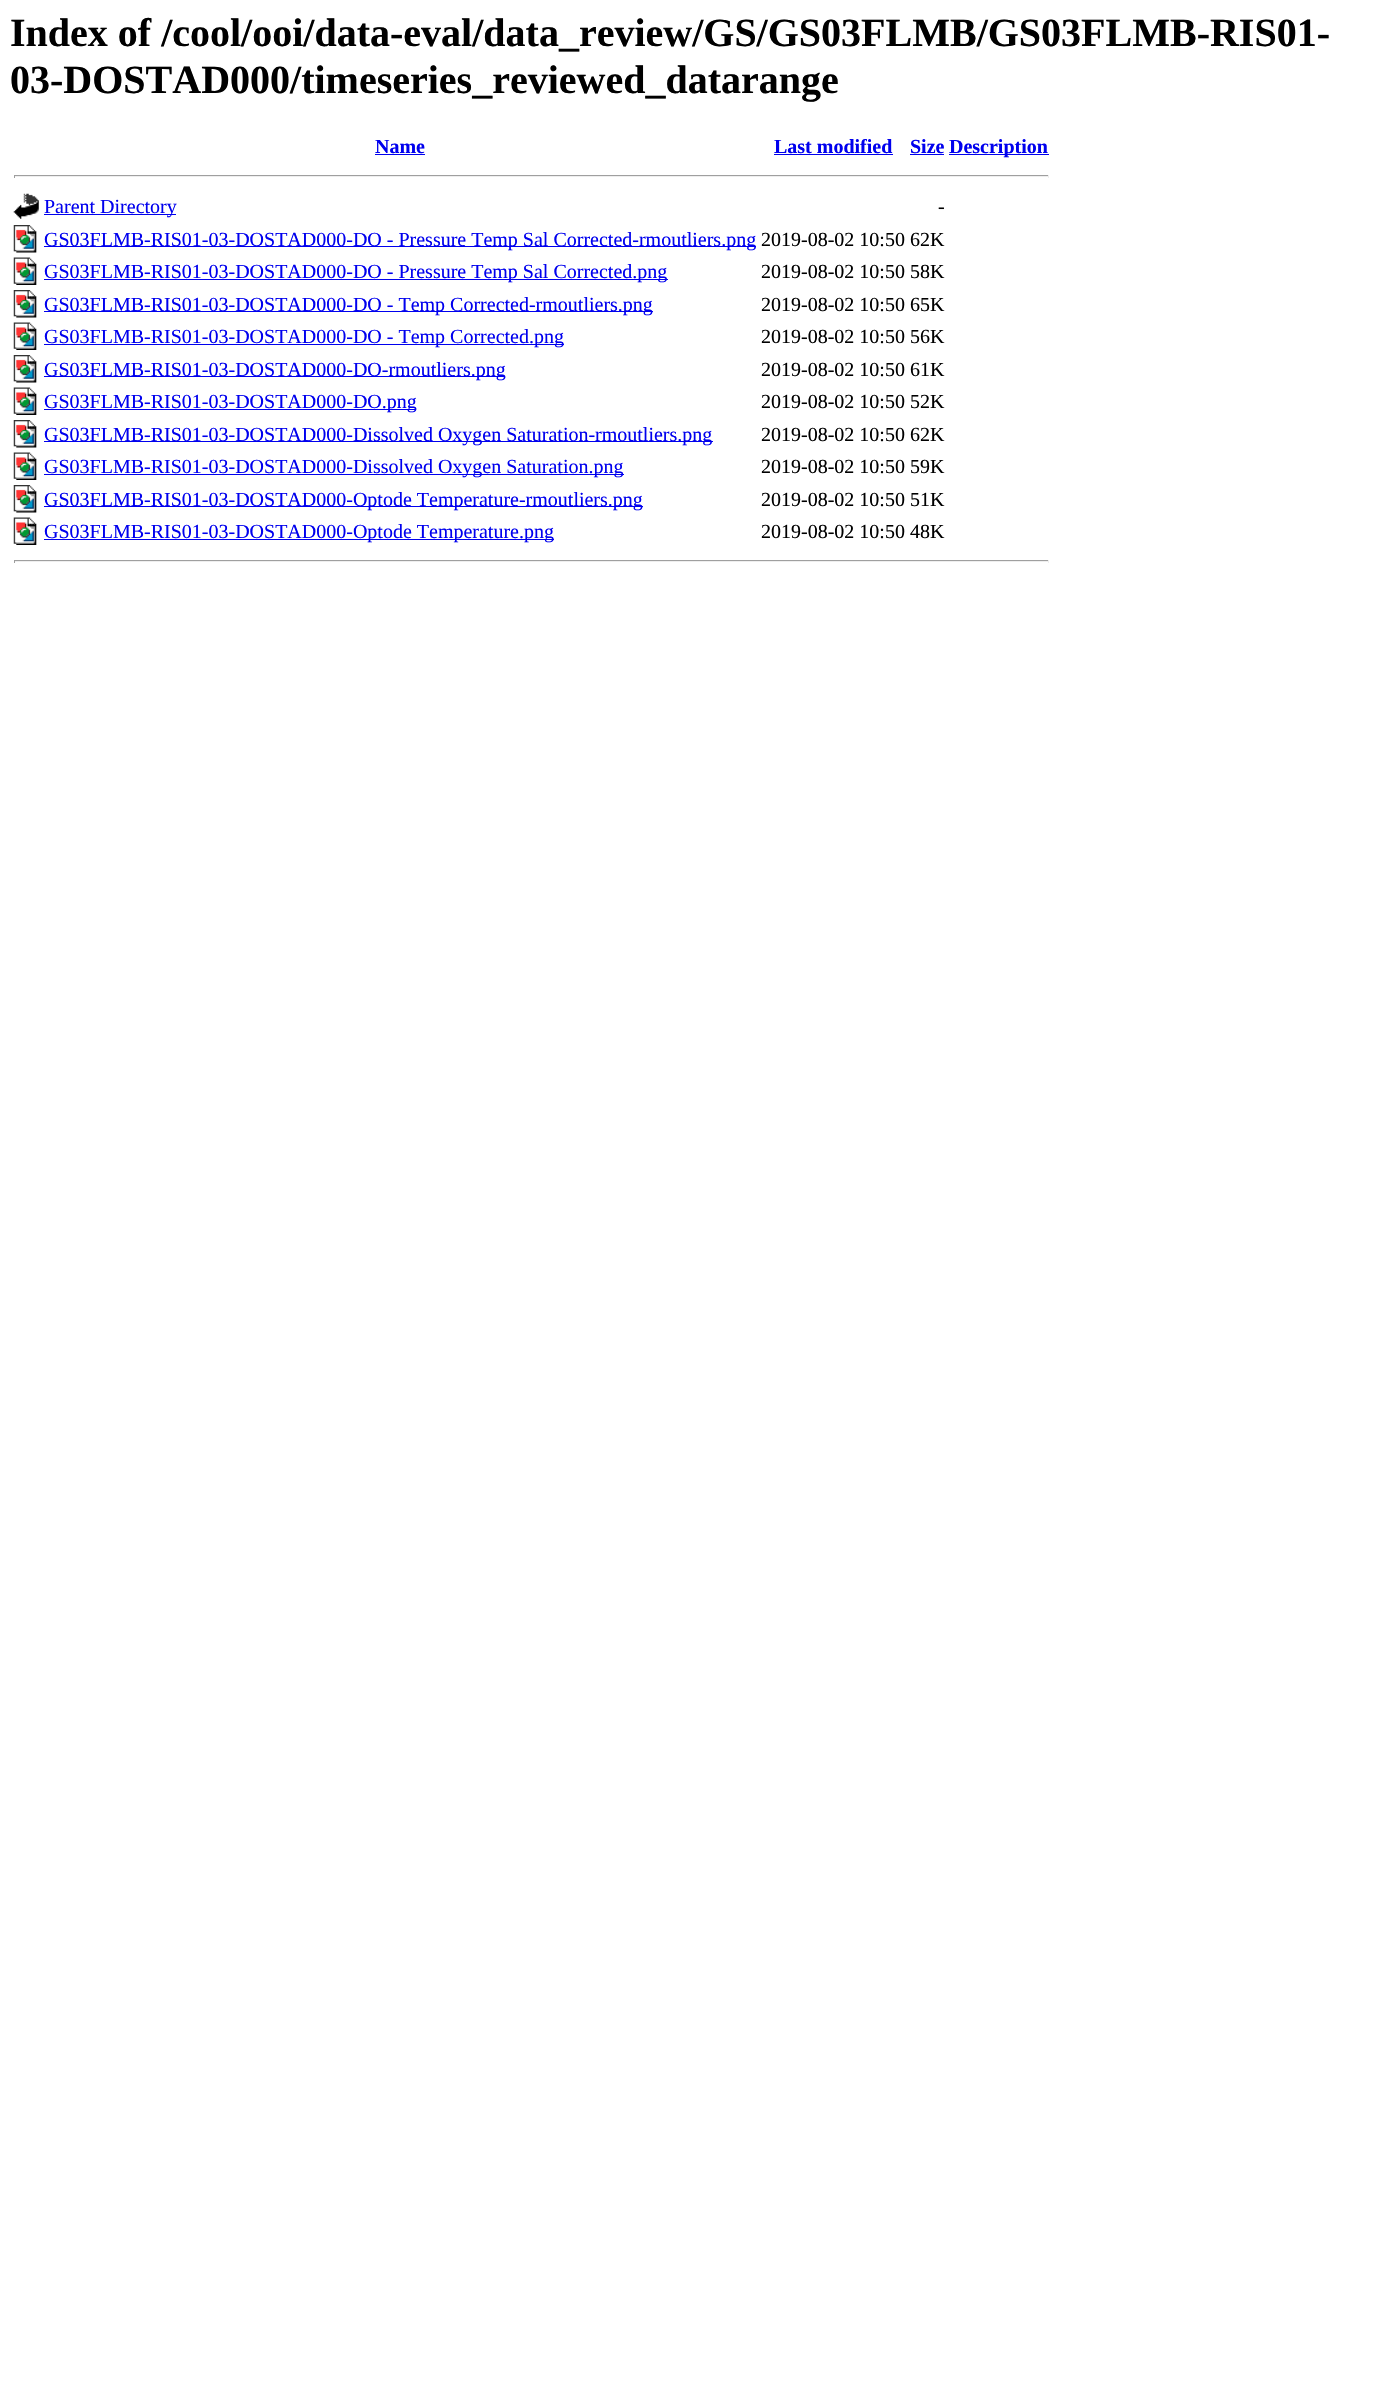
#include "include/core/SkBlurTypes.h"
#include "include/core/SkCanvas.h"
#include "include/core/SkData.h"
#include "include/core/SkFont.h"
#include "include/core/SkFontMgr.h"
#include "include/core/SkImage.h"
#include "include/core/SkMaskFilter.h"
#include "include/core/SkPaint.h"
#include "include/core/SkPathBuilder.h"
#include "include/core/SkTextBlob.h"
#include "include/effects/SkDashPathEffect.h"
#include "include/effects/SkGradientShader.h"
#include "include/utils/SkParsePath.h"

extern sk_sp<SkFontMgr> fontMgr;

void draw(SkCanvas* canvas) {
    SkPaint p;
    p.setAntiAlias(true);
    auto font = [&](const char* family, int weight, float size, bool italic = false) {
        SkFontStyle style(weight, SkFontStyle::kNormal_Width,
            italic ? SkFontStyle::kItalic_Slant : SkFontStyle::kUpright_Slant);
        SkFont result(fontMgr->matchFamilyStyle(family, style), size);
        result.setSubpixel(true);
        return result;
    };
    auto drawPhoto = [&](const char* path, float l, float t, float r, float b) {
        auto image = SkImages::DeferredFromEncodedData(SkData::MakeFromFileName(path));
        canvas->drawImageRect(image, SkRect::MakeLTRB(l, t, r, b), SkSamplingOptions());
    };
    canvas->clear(0xFFFFFFFF);
    auto font1 = font("Liberation Serif", 700, 40);
    p.setColor(0xFF000000);
    canvas->drawString("Index of /cool/ooi/data-eval/data_review/GS/GS03FLMB/GS03FLMB-RIS01-", 10, 46, font1, p);
    canvas->drawString("03-DOSTAD000/timeseries_reviewed_datarange", 10, 93, font1, p);
    auto font2 = font("Liberation Serif", 700, 20);
    p.setColor(0xFF0000EE);
    canvas->drawString("Name", 375, 153, font2, p);
    canvas->drawRect(SkRect::MakeLTRB(375, 154, 425, 155), p);
    canvas->drawString("Last modified", 774, 153, font2, p);
    canvas->drawRect(SkRect::MakeLTRB(774, 154, 893, 155), p);
    canvas->drawString("Size", 910, 153, font2, p);
    canvas->drawRect(SkRect::MakeLTRB(910, 154, 944, 155), p);
    canvas->drawRect(SkRect::MakeLTRB(949, 154, 1049, 155), p);
    canvas->drawString("Description", 949, 153, font2, p);
    {
        const struct { float l, t, r, b; SkColor color; } items[] = {
            {14, 175, 1049, 176, 0xFF9F9F9F},
            {1048, 175, 1049, 178, 0xFFEEEEEE},
            {14, 176, 1049, 177, 0xFFEEEEEE},
            {14, 175, 15, 178, 0xFF9F9F9F},
        };
        for (auto [l, t, r, b, color] : items) {
            p.setColor(color);
            canvas->drawRect(SkRect::MakeLTRB(l, t, r, b), p);
        }
    }
    drawPhoto("media/1.png", 13, 193, 39, 219);
    p.setColor(0xFF0000EE);
    canvas->drawRect(SkRect::MakeLTRB(44, 214, 176, 215), p);
    auto font3 = font("Liberation Serif", 400, 20);
    canvas->drawString("Parent Directory", 44, 213, font3, p);
    p.setColor(0xFF000000);
    canvas->drawString("-", 938, 213, font3, p);
    drawPhoto("media/2.png", 13, 225, 37, 253);
    p.setColor(0xFF0000EE);
    canvas->drawRect(SkRect::MakeLTRB(44, 246, 756, 247), p);
    canvas->drawString("GS03FLMB-RIS01-03-DOSTAD000-DO - Pressure Temp Sal Corrected-rmoutliers.png", 44, 246, font3, p);
    p.setColor(0xFF000000);
    canvas->drawString("2019-08-02 10:50 62K", 761, 246, font3, p);
    drawPhoto("media/3.png", 13, 257, 37, 285);
    p.setColor(0xFF0000EE);
    canvas->drawRect(SkRect::MakeLTRB(44, 279, 668, 280), p);
    canvas->drawString("GS03FLMB-RIS01-03-DOSTAD000-DO - Pressure Temp Sal Corrected.png", 44, 278, font3, p);
    p.setColor(0xFF000000);
    canvas->drawString("2019-08-02 10:50 58K", 761, 278, font3, p);
    drawPhoto("media/4.png", 13, 290, 37, 318);
    p.setColor(0xFF0000EE);
    canvas->drawRect(SkRect::MakeLTRB(44, 311, 653, 312), p);
    canvas->drawString("GS03FLMB-RIS01-03-DOSTAD000-DO - Temp Corrected-rmoutliers.png", 44, 311, font3, p);
    p.setColor(0xFF000000);
    canvas->drawString("2019-08-02 10:50 65K", 761, 311, font3, p);
    drawPhoto("media/3.png", 13, 322, 37, 350);
    p.setColor(0xFF0000EE);
    canvas->drawRect(SkRect::MakeLTRB(44, 344, 564, 345), p);
    canvas->drawString("GS03FLMB-RIS01-03-DOSTAD000-DO - Temp Corrected.png", 44, 343, font3, p);
    p.setColor(0xFF000000);
    canvas->drawString("2019-08-02 10:50 56K", 761, 343, font3, p);
    drawPhoto("media/2.png", 13, 355, 37, 383);
    p.setColor(0xFF0000EE);
    canvas->drawRect(SkRect::MakeLTRB(44, 376, 505, 377), p);
    canvas->drawString("GS03FLMB-RIS01-03-DOSTAD000-DO-rmoutliers.png", 44, 376, font3, p);
    p.setColor(0xFF000000);
    canvas->drawString("2019-08-02 10:50 61K", 761, 376, font3, p);
    drawPhoto("media/3.png", 13, 387, 37, 415);
    p.setColor(0xFF0000EE);
    canvas->drawRect(SkRect::MakeLTRB(44, 409, 416, 410), p);
    canvas->drawString("GS03FLMB-RIS01-03-DOSTAD000-DO.png", 44, 408, font3, p);
    p.setColor(0xFF000000);
    canvas->drawString("2019-08-02 10:50 52K", 761, 408, font3, p);
    drawPhoto("media/2.png", 13, 420, 37, 448);
    p.setColor(0xFF0000EE);
    canvas->drawRect(SkRect::MakeLTRB(44, 441, 713, 442), p);
    canvas->drawString("GS03FLMB-RIS01-03-DOSTAD000-Dissolved Oxygen Saturation-rmoutliers.png", 44, 441, font3, p);
    p.setColor(0xFF000000);
    canvas->drawString("2019-08-02 10:50 62K", 761, 441, font3, p);
    drawPhoto("media/3.png", 13, 452, 37, 480);
    p.setColor(0xFF0000EE);
    canvas->drawRect(SkRect::MakeLTRB(44, 474, 624, 475), p);
    canvas->drawString("GS03FLMB-RIS01-03-DOSTAD000-Dissolved Oxygen Saturation.png", 44, 473, font3, p);
    p.setColor(0xFF000000);
    canvas->drawString("2019-08-02 10:50 59K", 761, 473, font3, p);
    drawPhoto("media/2.png", 13, 485, 37, 513);
    p.setColor(0xFF0000EE);
    canvas->drawRect(SkRect::MakeLTRB(44, 506, 643, 507), p);
    canvas->drawString("GS03FLMB-RIS01-03-DOSTAD000-Optode Temperature-rmoutliers.png", 44, 506, font3, p);
    p.setColor(0xFF000000);
    canvas->drawString("2019-08-02 10:50 51K", 761, 506, font3, p);
    drawPhoto("media/3.png", 13, 517, 37, 545);
    p.setColor(0xFF0000EE);
    canvas->drawRect(SkRect::MakeLTRB(44, 539, 554, 540), p);
    canvas->drawString("GS03FLMB-RIS01-03-DOSTAD000-Optode Temperature.png", 44, 538, font3, p);
    p.setColor(0xFF000000);
    canvas->drawString("2019-08-02 10:50 48K", 761, 538, font3, p);
    {
        const struct { float l, t, r, b; SkColor color; } items[] = {
            {14, 560, 1049, 561, 0xFF9F9F9F},
            {1048, 560, 1049, 563, 0xFFEEEEEE},
            {14, 561, 1049, 562, 0xFFEEEEEE},
            {14, 560, 15, 563, 0xFF9F9F9F},
        };
        for (auto [l, t, r, b, color] : items) {
            p.setColor(color);
            canvas->drawRect(SkRect::MakeLTRB(l, t, r, b), p);
        }
    }
}
